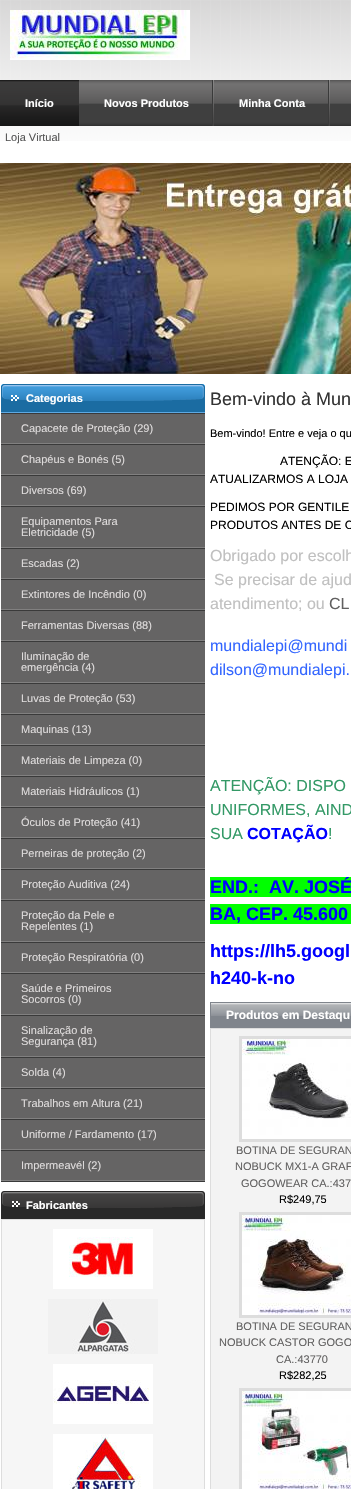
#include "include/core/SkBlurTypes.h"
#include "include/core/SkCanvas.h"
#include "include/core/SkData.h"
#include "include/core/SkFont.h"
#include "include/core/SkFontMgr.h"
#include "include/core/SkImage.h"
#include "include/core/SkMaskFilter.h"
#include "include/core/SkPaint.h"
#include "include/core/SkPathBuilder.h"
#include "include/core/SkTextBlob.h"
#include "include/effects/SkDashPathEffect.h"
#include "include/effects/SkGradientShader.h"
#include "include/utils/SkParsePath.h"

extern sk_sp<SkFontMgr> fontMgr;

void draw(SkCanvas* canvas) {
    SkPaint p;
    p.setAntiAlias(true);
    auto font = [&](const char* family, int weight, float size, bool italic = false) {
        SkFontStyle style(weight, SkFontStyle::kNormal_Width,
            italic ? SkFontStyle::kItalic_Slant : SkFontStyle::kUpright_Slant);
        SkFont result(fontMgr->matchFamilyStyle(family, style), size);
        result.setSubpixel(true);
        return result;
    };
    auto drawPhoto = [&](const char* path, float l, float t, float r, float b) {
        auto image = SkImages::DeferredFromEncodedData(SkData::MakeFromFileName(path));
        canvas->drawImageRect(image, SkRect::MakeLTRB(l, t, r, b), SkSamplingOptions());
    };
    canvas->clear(0xFFFFFFFF);
    drawPhoto("media/1.png", 0, 0, 351, 141);
    drawPhoto("media/2.png", 10, 10, 190, 60);
    drawPhoto("media/3.png", 79, 80, 351, 126);
    drawPhoto("media/4.png", 0, 80, 79, 126);
    auto font1 = font("Liberation Sans", 700, 11);
    p.setColor(0xFFFFFFFF);
    canvas->drawString("Início", 25, 107, font1, p);
    drawPhoto("media/5.png", 212, 80, 214, 126);
    canvas->drawString("Novos Produtos", 104, 107, font1, p);
    drawPhoto("media/5.png", 328, 80, 330, 126);
    canvas->drawString("Minha Conta", 239, 107, font1, p);
    auto font2 = font("Liberation Sans", 400, 11);
    p.setColor(0xFF555555);
    canvas->drawString("Loja Virtual", 5, 141, font2, p);
    drawPhoto("media/6.png", 0, 163, 351, 374);
    drawPhoto("media/7.png", 1, 384, 205, 412);
    p.setColor(0xFFFFFFFF);
    canvas->drawString("Categorias", 26, 402, font1, p);
    {
        const struct { float l, t, r, b; SkColor color; } items[] = {
            {1, 414, 205, 1180, 0xFF656464},
            {1, 412, 205, 413, 0xFF5EA9E2},
            {1, 1181, 205, 1182, 0xFF3A3A3A},
            {1, 413, 205, 414, 0xFF3A3A3A},
            {1, 443, 205, 444, 0xFF818080},
        };
        for (auto [l, t, r, b, color] : items) {
            p.setColor(color);
            canvas->drawRect(SkRect::MakeLTRB(l, t, r, b), p);
        }
    }
    p.setColor(0xFFDFDCDC);
    canvas->drawString("Capacete de Proteção (29)", 21, 432, font2, p);
    p.setColor(0xFF3A3A3A);
    canvas->drawRect(SkRect::MakeLTRB(1, 444, 205, 445), p);
    p.setColor(0xFF818080);
    canvas->drawRect(SkRect::MakeLTRB(1, 474, 205, 475), p);
    p.setColor(0xFFDFDCDC);
    canvas->drawString("Chapéus e Bonés (5)", 21, 463, font2, p);
    p.setColor(0xFF3A3A3A);
    canvas->drawRect(SkRect::MakeLTRB(1, 475, 205, 476), p);
    p.setColor(0xFF818080);
    canvas->drawRect(SkRect::MakeLTRB(1, 505, 205, 506), p);
    p.setColor(0xFFDFDCDC);
    canvas->drawString("Diversos (69)", 21, 494, font2, p);
    p.setColor(0xFF3A3A3A);
    canvas->drawRect(SkRect::MakeLTRB(1, 506, 205, 507), p);
    p.setColor(0xFF818080);
    canvas->drawRect(SkRect::MakeLTRB(1, 547, 205, 548), p);
    p.setColor(0xFFDFDCDC);
    canvas->drawString("Equipamentos Para", 21, 525, font2, p);
    canvas->drawString("Eletricidade (5)", 21, 536, font2, p);
    p.setColor(0xFF3A3A3A);
    canvas->drawRect(SkRect::MakeLTRB(1, 548, 205, 549), p);
    p.setColor(0xFF818080);
    canvas->drawRect(SkRect::MakeLTRB(1, 578, 205, 579), p);
    p.setColor(0xFFDFDCDC);
    canvas->drawString("Escadas (2)", 21, 567, font2, p);
    p.setColor(0xFF3A3A3A);
    canvas->drawRect(SkRect::MakeLTRB(1, 579, 205, 580), p);
    p.setColor(0xFF818080);
    canvas->drawRect(SkRect::MakeLTRB(1, 609, 205, 610), p);
    p.setColor(0xFFDFDCDC);
    canvas->drawString("Extintores de Incêndio (0)", 21, 598, font2, p);
    p.setColor(0xFF3A3A3A);
    canvas->drawRect(SkRect::MakeLTRB(1, 610, 205, 611), p);
    p.setColor(0xFF818080);
    canvas->drawRect(SkRect::MakeLTRB(1, 640, 205, 641), p);
    p.setColor(0xFFDFDCDC);
    canvas->drawString("Ferramentas Diversas (88)", 21, 629, font2, p);
    p.setColor(0xFF3A3A3A);
    canvas->drawRect(SkRect::MakeLTRB(1, 641, 205, 642), p);
    p.setColor(0xFF818080);
    canvas->drawRect(SkRect::MakeLTRB(1, 682, 205, 683), p);
    p.setColor(0xFFDFDCDC);
    canvas->drawString("Iluminação de", 21, 660, font2, p);
    canvas->drawString("emergência (4)", 21, 671, font2, p);
    p.setColor(0xFF3A3A3A);
    canvas->drawRect(SkRect::MakeLTRB(1, 683, 205, 684), p);
    p.setColor(0xFF818080);
    canvas->drawRect(SkRect::MakeLTRB(1, 713, 205, 714), p);
    p.setColor(0xFFDFDCDC);
    canvas->drawString("Luvas de Proteção (53)", 21, 702, font2, p);
    p.setColor(0xFF3A3A3A);
    canvas->drawRect(SkRect::MakeLTRB(1, 714, 205, 715), p);
    p.setColor(0xFF818080);
    canvas->drawRect(SkRect::MakeLTRB(1, 744, 205, 745), p);
    p.setColor(0xFFDFDCDC);
    canvas->drawString("Maquinas (13)", 21, 733, font2, p);
    p.setColor(0xFF3A3A3A);
    canvas->drawRect(SkRect::MakeLTRB(1, 745, 205, 746), p);
    p.setColor(0xFF818080);
    canvas->drawRect(SkRect::MakeLTRB(1, 775, 205, 776), p);
    p.setColor(0xFFDFDCDC);
    canvas->drawString("Materiais de Limpeza (0)", 21, 764, font2, p);
    p.setColor(0xFF3A3A3A);
    canvas->drawRect(SkRect::MakeLTRB(1, 776, 205, 777), p);
    p.setColor(0xFF818080);
    canvas->drawRect(SkRect::MakeLTRB(1, 806, 205, 807), p);
    p.setColor(0xFFDFDCDC);
    canvas->drawString("Materiais Hidráulicos (1)", 21, 795, font2, p);
    p.setColor(0xFF3A3A3A);
    canvas->drawRect(SkRect::MakeLTRB(1, 807, 205, 808), p);
    p.setColor(0xFF818080);
    canvas->drawRect(SkRect::MakeLTRB(1, 837, 205, 838), p);
    p.setColor(0xFFDFDCDC);
    canvas->drawString("Óculos de Proteção (41)", 21, 826, font2, p);
    p.setColor(0xFF3A3A3A);
    canvas->drawRect(SkRect::MakeLTRB(1, 838, 205, 839), p);
    p.setColor(0xFF818080);
    canvas->drawRect(SkRect::MakeLTRB(1, 868, 205, 869), p);
    p.setColor(0xFFDFDCDC);
    canvas->drawString("Perneiras de proteção (2)", 21, 857, font2, p);
    p.setColor(0xFF3A3A3A);
    canvas->drawRect(SkRect::MakeLTRB(1, 869, 205, 870), p);
    p.setColor(0xFF818080);
    canvas->drawRect(SkRect::MakeLTRB(1, 899, 205, 900), p);
    p.setColor(0xFFDFDCDC);
    canvas->drawString("Proteção Auditiva (24)", 21, 888, font2, p);
    p.setColor(0xFF3A3A3A);
    canvas->drawRect(SkRect::MakeLTRB(1, 900, 205, 901), p);
    p.setColor(0xFF818080);
    canvas->drawRect(SkRect::MakeLTRB(1, 941, 205, 942), p);
    p.setColor(0xFFDFDCDC);
    canvas->drawString("Proteção da Pele e", 21, 919, font2, p);
    canvas->drawString("Repelentes (1)", 21, 930, font2, p);
    p.setColor(0xFF3A3A3A);
    canvas->drawRect(SkRect::MakeLTRB(1, 942, 205, 943), p);
    p.setColor(0xFF818080);
    canvas->drawRect(SkRect::MakeLTRB(1, 972, 205, 973), p);
    p.setColor(0xFFDFDCDC);
    canvas->drawString("Proteção Respiratória (0)", 21, 961, font2, p);
    p.setColor(0xFF3A3A3A);
    canvas->drawRect(SkRect::MakeLTRB(1, 973, 205, 974), p);
    p.setColor(0xFF818080);
    canvas->drawRect(SkRect::MakeLTRB(1, 1014, 205, 1015), p);
    p.setColor(0xFFDFDCDC);
    canvas->drawString("Saúde e Primeiros", 21, 992, font2, p);
    canvas->drawString("Socorros (0)", 21, 1003, font2, p);
    p.setColor(0xFF3A3A3A);
    canvas->drawRect(SkRect::MakeLTRB(1, 1015, 205, 1016), p);
    p.setColor(0xFF818080);
    canvas->drawRect(SkRect::MakeLTRB(1, 1056, 205, 1057), p);
    p.setColor(0xFFDFDCDC);
    canvas->drawString("Sinalização de", 21, 1034, font2, p);
    canvas->drawString("Segurança (81)", 21, 1045, font2, p);
    p.setColor(0xFF3A3A3A);
    canvas->drawRect(SkRect::MakeLTRB(1, 1057, 205, 1058), p);
    p.setColor(0xFF818080);
    canvas->drawRect(SkRect::MakeLTRB(1, 1087, 205, 1088), p);
    p.setColor(0xFFDFDCDC);
    canvas->drawString("Solda (4)", 21, 1076, font2, p);
    p.setColor(0xFF3A3A3A);
    canvas->drawRect(SkRect::MakeLTRB(1, 1088, 205, 1089), p);
    p.setColor(0xFF818080);
    canvas->drawRect(SkRect::MakeLTRB(1, 1118, 205, 1119), p);
    p.setColor(0xFFDFDCDC);
    canvas->drawString("Trabalhos em Altura (21)", 21, 1107, font2, p);
    p.setColor(0xFF3A3A3A);
    canvas->drawRect(SkRect::MakeLTRB(1, 1119, 205, 1120), p);
    p.setColor(0xFF818080);
    canvas->drawRect(SkRect::MakeLTRB(1, 1149, 205, 1150), p);
    p.setColor(0xFFDFDCDC);
    canvas->drawString("Uniforme / Fardamento (17)", 21, 1138, font2, p);
    p.setColor(0xFF3A3A3A);
    canvas->drawRect(SkRect::MakeLTRB(1, 1150, 205, 1151), p);
    p.setColor(0xFF818080);
    canvas->drawRect(SkRect::MakeLTRB(1, 1180, 205, 1181), p);
    p.setColor(0xFFDFDCDC);
    canvas->drawString("Impermeavél (2)", 21, 1169, font2, p);
    drawPhoto("media/8.png", 1, 1191, 205, 1219);
    p.setColor(0xFFFFFFFF);
    canvas->drawString("Fabricantes", 26, 1209, font1, p);
    {
        const struct { float l, t, r, b; SkColor color; } items[] = {
            {2, 1220, 204, 1489, 0xFFF6F6F6},
            {1, 1219, 205, 1220, 0xFFDDDDDD},
            {204, 1219, 205, 1489, 0xFFDDDDDD},
            {1, 1219, 2, 1489, 0xFFDDDDDD},
        };
        for (auto [l, t, r, b, color] : items) {
            p.setColor(color);
            canvas->drawRect(SkRect::MakeLTRB(l, t, r, b), p);
        }
    }
    drawPhoto("media/9.png", 53, 1229, 153, 1289);
    drawPhoto("media/10.png", 48, 1299, 158, 1354);
    drawPhoto("media/11.png", 53, 1364, 153, 1424);
    drawPhoto("media/12.png", 53, 1434, 153, 1489);
    auto font3 = font("Liberation Sans", 400, 18);
    p.setColor(0xFF333333);
    canvas->drawString("Bem-vindo à Mun", 210, 405, font3, p);
    p.setColor(0xFF000000);
    canvas->drawString("Bem-vindo! Entre e veja o qu", 210, 437, font2, p);
    auto font4 = font("Liberation Sans", 400, 12);
    {
        const struct { const char* s; float x, y; } items[] = {
            {"ATENÇÃO: E", 280, 465},
            {"ATUALIZARMOS A LOJA", 210, 483},
            {"PEDIMOS POR GENTILE", 210, 511},
            {"PRODUTOS ANTES DE C", 210, 529},
        };
        for (auto [s, x, y] : items) {
            canvas->drawString(s, x, y, font4, p);
        }
    }
    auto font5 = font("Liberation Sans", 400, 16);
    p.setColor(0xFFC0C0C0);
    {
        const struct { const char* s; float x, y; } items[] = {
            {"Obrigado por escolh", 210, 561},
            {"Se precisar de ajud", 214, 585},
            {"atendimento; ou", 210, 609},
        };
        for (auto [s, x, y] : items) {
            canvas->drawString(s, x, y, font5, p);
        }
    }
    p.setColor(0xFF616060);
    canvas->drawString("CL", 329, 609, font5, p);
    p.setColor(0xFF3366FF);
    canvas->drawString("mundialepi@mundi", 210, 651, font5, p);
    canvas->drawString("dilson@mundialepi.", 210, 675, font5, p);
    p.setColor(0xFF339966);
    {
        const struct { const char* s; float x, y; } items[] = {
            {"ATENÇÃO: DISPO", 210, 791},
            {"UNIFORMES, AIND", 210, 815},
            {"SUA", 210, 839},
        };
        for (auto [s, x, y] : items) {
            canvas->drawString(s, x, y, font5, p);
        }
    }
    auto font6 = font("Liberation Sans", 700, 16);
    p.setColor(0xFF0000FF);
    canvas->drawString("COTAÇÃO", 247, 839, font6, p);
    p.setColor(0xFF339966);
    canvas->drawString("!", 328, 839, font5, p);
    p.setColor(0xFF00FF00);
    canvas->drawRect(SkRect::MakeLTRB(210, 877, 351, 897), p);
    auto font7 = font("Liberation Sans", 700, 18);
    p.setColor(0xFF0000FF);
    canvas->drawString("END.:  AV. JOSÉ", 210, 893, font7, p);
    p.setColor(0xFF00FF00);
    canvas->drawRect(SkRect::MakeLTRB(210, 904, 351, 924), p);
    p.setColor(0xFF0000FF);
    {
        const struct { const char* s; float x, y; } items[] = {
            {"BA, CEP. 45.600", 210, 920},
            {"https://lh5.googl", 210, 957},
            {"h240-k-no", 210, 984},
        };
        for (auto [s, x, y] : items) {
            canvas->drawString(s, x, y, font7, p);
        }
    }
    drawPhoto("media/13.png", 211, 1002, 351, 1028);
    p.setColor(0xFF80858C);
    canvas->drawRect(SkRect::MakeLTRB(210, 1002, 211, 1028), p);
    auto font8 = font("Liberation Sans", 700, 12);
    p.setColor(0xFFFFFFFF);
    canvas->drawString("Produtos em Destaqu", 226, 1019, font8, p);
    {
        const struct { float l, t, r, b; SkColor color; } items[] = {
            {211, 1029, 351, 1489, 0xFFF3F3F3},
            {210, 1028, 351, 1029, 0xFFDDDDDD},
            {210, 1028, 211, 1489, 0xFFDDDDDD},
        };
        for (auto [l, t, r, b, color] : items) {
            p.setColor(color);
            canvas->drawRect(SkRect::MakeLTRB(l, t, r, b), p);
        }
    }
    p.setStyle(SkPaint::kStroke_Style);
    p.setStrokeWidth(3);
    canvas->drawRect(SkRect::MakeLTRB(240.5f, 1037.5f, 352.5f, 1140.5f), p);
    drawPhoto("media/14.png", 242, 1039, 351, 1139);
    p.setStyle(SkPaint::kFill_Style);
    p.setColor(0xFF616060);
    {
        const struct { const char* s; float x, y; } items[] = {
            {"BOTINA DE SEGURAN", 236, 1154},
            {"NOBUCK MX1-A GRAF", 235, 1170},
            {"GOGOWEAR CA.:437", 241, 1187},
        };
        for (auto [s, x, y] : items) {
            canvas->drawString(s, x, y, font2, p);
        }
    }
    p.setColor(0xFF000000);
    canvas->drawString("R$249,75", 279, 1203, font2, p);
    p.setStyle(SkPaint::kStroke_Style);
    p.setColor(0xFFDDDDDD);
    canvas->drawRect(SkRect::MakeLTRB(240.5f, 1213.5f, 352.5f, 1316.5f), p);
    drawPhoto("media/15.png", 242, 1215, 351, 1315);
    p.setStyle(SkPaint::kFill_Style);
    p.setColor(0xFF616060);
    {
        const struct { const char* s; float x, y; } items[] = {
            {"BOTINA DE SEGURAN", 236, 1330},
            {"NOBUCK CASTOR GOGO", 219, 1346},
            {"CA.:43770", 276, 1363},
        };
        for (auto [s, x, y] : items) {
            canvas->drawString(s, x, y, font2, p);
        }
    }
    p.setColor(0xFF000000);
    canvas->drawString("R$282,25", 279, 1379, font2, p);
    p.setStyle(SkPaint::kStroke_Style);
    p.setColor(0xFFDDDDDD);
    canvas->drawRect(SkRect::MakeLTRB(240.5f, 1389.5f, 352.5f, 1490.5f), p);
    drawPhoto("media/16.png", 242, 1391, 351, 1489);
}
